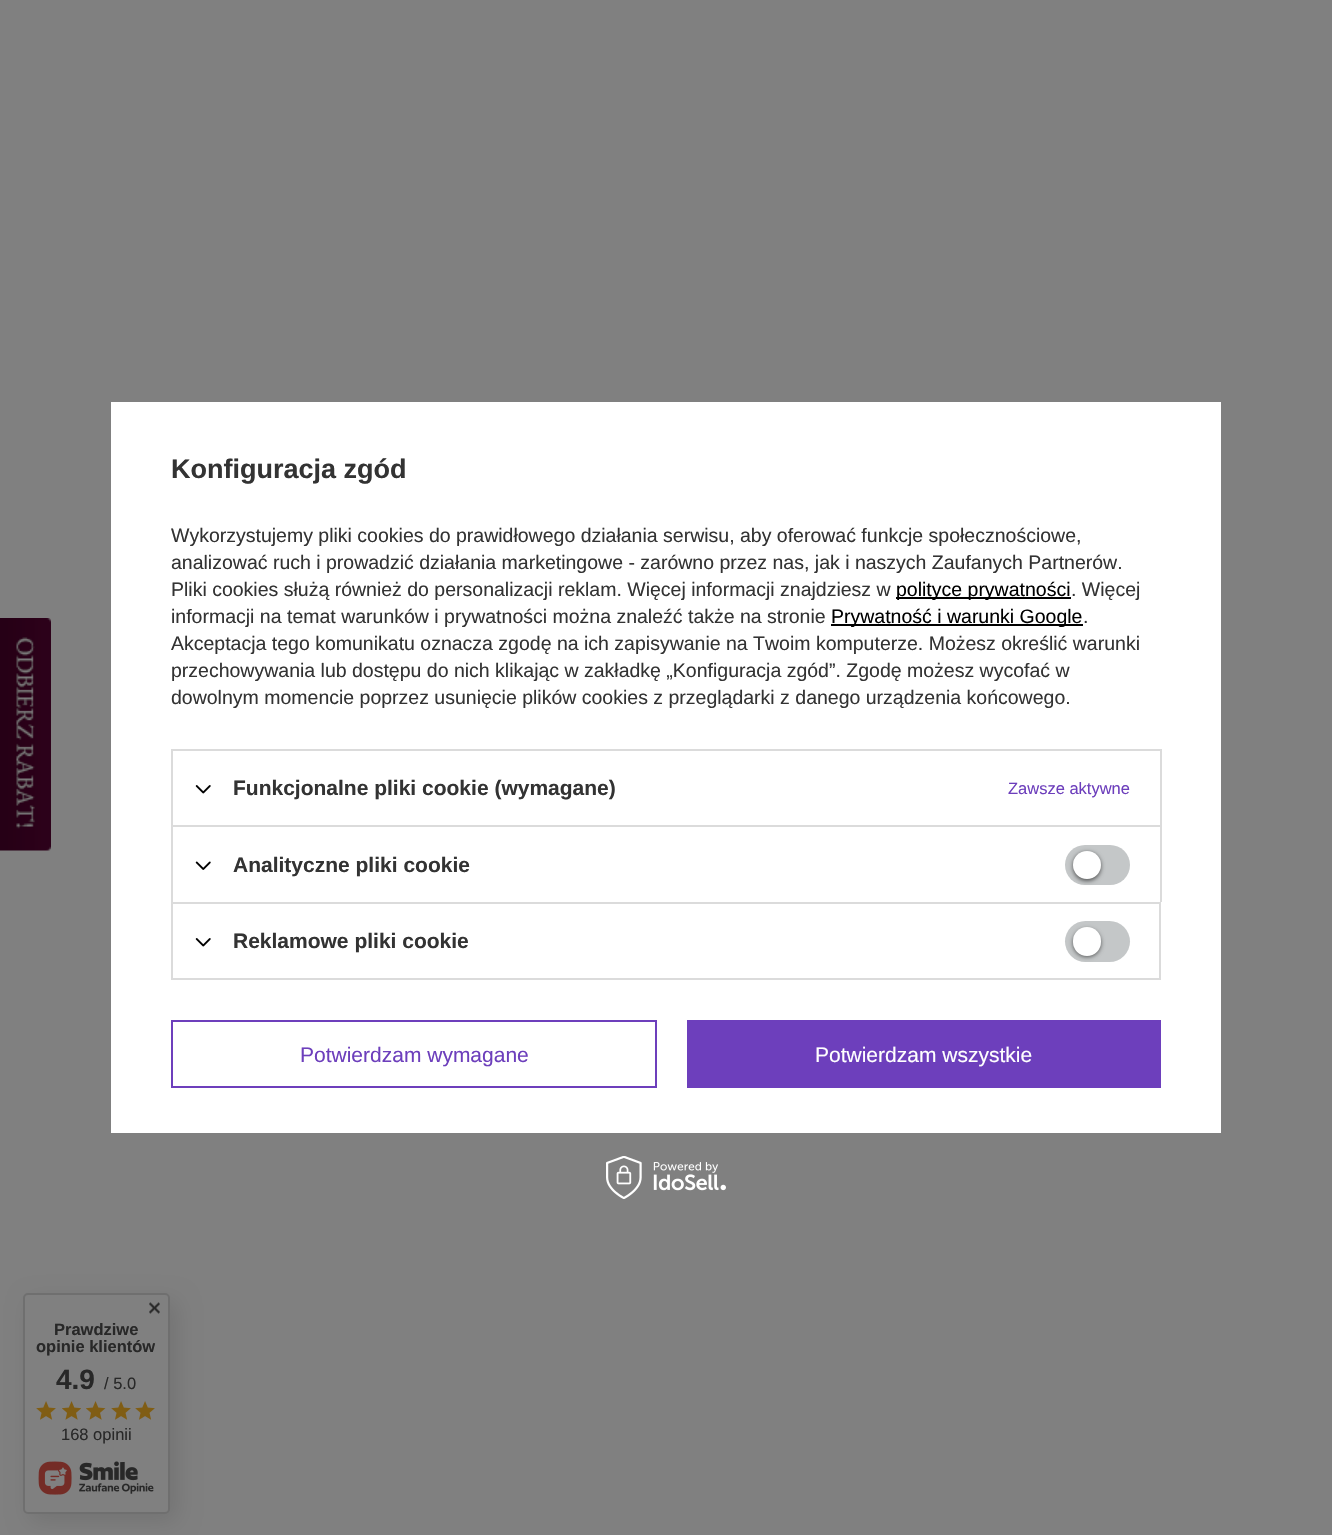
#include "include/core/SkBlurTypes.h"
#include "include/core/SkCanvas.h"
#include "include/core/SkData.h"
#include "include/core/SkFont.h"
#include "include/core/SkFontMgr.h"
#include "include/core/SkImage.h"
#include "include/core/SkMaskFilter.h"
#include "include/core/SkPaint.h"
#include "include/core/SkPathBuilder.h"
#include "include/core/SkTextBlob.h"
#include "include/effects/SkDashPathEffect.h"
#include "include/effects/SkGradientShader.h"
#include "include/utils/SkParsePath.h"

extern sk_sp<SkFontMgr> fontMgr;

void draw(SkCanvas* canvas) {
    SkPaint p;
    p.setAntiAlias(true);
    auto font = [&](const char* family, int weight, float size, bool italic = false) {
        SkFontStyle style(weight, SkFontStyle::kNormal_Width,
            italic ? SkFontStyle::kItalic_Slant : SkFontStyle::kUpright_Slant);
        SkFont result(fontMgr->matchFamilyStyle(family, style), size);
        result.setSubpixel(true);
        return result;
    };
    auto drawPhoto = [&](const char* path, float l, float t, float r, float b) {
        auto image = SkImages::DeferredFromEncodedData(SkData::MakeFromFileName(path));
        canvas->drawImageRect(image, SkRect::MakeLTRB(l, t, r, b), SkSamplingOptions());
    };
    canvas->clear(0xFF808080);
    drawPhoto("media/1.png", 0, 618, 51, 851);
    p.setColor(0xFFFFFFFF);
    canvas->drawRect(SkRect::MakeLTRB(111, 402, 1221, 1133), p);
    auto font1 = font("Liberation Sans", 700, 27);
    p.setColor(0xFF333333);
    canvas->drawString("Konfiguracja zgód", 171, 478, font1, p);
    auto font2 = font("Liberation Sans", 400, 19.5f);
    {
        const struct { const char* s; float x, y; } items[] = {
            {"Wykorzystujemy pliki cookies do prawidłowego działania serwisu, aby oferować funkcje społecznościowe,", 171, 542},
            {"analizować ruch i prowadzić działania marketingowe - zarówno przez nas, jak i naszych Zaufanych Partnerów.", 171, 569},
            {"Pliki cookies służą również do personalizacji reklam. Więcej informacji znajdziesz w", 171, 596},
        };
        for (auto [s, x, y] : items) {
            canvas->drawString(s, x, y, font2, p);
        }
    }
    p.setColor(0xFF000000);
    canvas->drawRect(SkRect::MakeLTRB(896, 597, 1071, 599), p);
    canvas->drawString("polityce prywatności", 896, 596, font2, p);
    p.setColor(0xFF333333);
    canvas->drawString(". Więcej", 1071, 596, font2, p);
    canvas->drawString("informacji na temat warunków i prywatności można znaleźć także na stronie", 171, 623, font2, p);
    p.setColor(0xFF000000);
    canvas->drawRect(SkRect::MakeLTRB(831, 624, 1083, 626), p);
    canvas->drawString("Prywatność i warunki Google", 831, 623, font2, p);
    p.setColor(0xFF333333);
    {
        const struct { const char* s; float x, y; } items[] = {
            {".", 1083, 623},
            {"Akceptacja tego komunikatu oznacza zgodę na ich zapisywanie na Twoim komputerze. Możesz określić warunki", 171, 650},
            {"przechowywania lub dostępu do nich klikając w zakładkę „Konfiguracja zgód”. Zgodę możesz wycofać w", 171, 677},
            {"dowolnym momencie poprzez usunięcie plików cookies z przeglądarki z danego urządzenia końcowego.", 171, 704},
        };
        for (auto [s, x, y] : items) {
            canvas->drawString(s, x, y, font2, p);
        }
    }
    {
        const struct { float l, t, r, b; SkColor color; } items[] = {
            {171, 749, 1161, 751, 0xFFDBDBDB},
            {1160, 749, 1162, 825, 0xFFDBDBDB},
            {171, 749, 173, 825, 0xFFDBDBDB},
        };
        for (auto [l, t, r, b, color] : items) {
            p.setColor(color);
            canvas->drawRect(SkRect::MakeLTRB(l, t, r, b), p);
        }
    }
    drawPhoto("media/2.png", 195, 785, 211, 794);
    auto font3 = font("Liberation Sans", 700, 21);
    p.setColor(0xFF333333);
    canvas->drawString("Funkcjonalne pliki cookie (wymagane)", 233, 795, font3, p);
    auto font4 = font("Liberation Sans", 400, 16.5f);
    p.setColor(0xFF6D3FBC);
    canvas->drawString("Zawsze aktywne", 1008, 794, font4, p);
    {
        const struct { float l, t, r, b; SkColor color; } items[] = {
            {171, 825, 1161, 827, 0xFFDBDBDB},
            {1160, 825, 1162, 902, 0xFFDBDBDB},
            {171, 825, 173, 902, 0xFFDBDBDB},
        };
        for (auto [l, t, r, b, color] : items) {
            p.setColor(color);
            canvas->drawRect(SkRect::MakeLTRB(l, t, r, b), p);
        }
    }
    drawPhoto("media/3.png", 195, 861, 211, 870);
    p.setColor(0xFF333333);
    canvas->drawString("Analityczne pliki cookie", 233, 872, font3, p);
    p.setColor(0xFFC4C7C8);
    canvas->drawRoundRect(SkRect::MakeLTRB(1065, 845, 1130, 885), 20, 20, p);
    p.setColor(0x8F000000);
    p.setMaskFilter(SkMaskFilter::MakeBlur(kNormal_SkBlurStyle, 2));
    canvas->drawRoundRect(SkRect::MakeLTRB(1073, 852, 1101, 881), 14, 14, p);
    p.setMaskFilter(nullptr);
    p.setColor(0xFFFFFFFF);
    canvas->drawCircle(1087, 865, 14, p);
    p.setStyle(SkPaint::kStroke_Style);
    p.setStrokeWidth(2);
    p.setColor(0xFFDBDBDB);
    canvas->drawRect(SkRect::MakeLTRB(172, 903, 1160, 979), p);
    drawPhoto("media/2.png", 195, 938, 211, 947);
    p.setStyle(SkPaint::kFill_Style);
    p.setColor(0xFF333333);
    canvas->drawString("Reklamowe pliki cookie", 233, 948, font3, p);
    p.setColor(0xFFC4C7C8);
    canvas->drawRoundRect(SkRect::MakeLTRB(1065, 921, 1130, 962), 20.5f, 20.5f, p);
    p.setColor(0x8F000000);
    p.setMaskFilter(SkMaskFilter::MakeBlur(kNormal_SkBlurStyle, 2));
    canvas->drawRoundRect(SkRect::MakeLTRB(1073, 929, 1101, 957), 14, 14, p);
    p.setMaskFilter(nullptr);
    p.setColor(0xFFFFFFFF);
    canvas->drawRoundRect(SkRect::MakeLTRB(1073, 927, 1101, 956), 14, 14, p);
    p.setStyle(SkPaint::kStroke_Style);
    p.setColor(0xFF6D3FBC);
    canvas->drawRect(SkRect::MakeLTRB(172, 1021, 656, 1087), p);
    auto font5 = font("Liberation Sans", 400, 21);
    p.setStyle(SkPaint::kFill_Style);
    canvas->drawString("Potwierdzam wymagane", 300, 1062, font5, p);
    canvas->drawRect(SkRect::MakeLTRB(687, 1020, 1161, 1088), p);
    p.setColor(0xFFFFFFFF);
    canvas->drawString("Potwierdzam wszystkie", 815, 1062, font5, p);
    drawPhoto("media/4.png", 606, 1156, 726, 1199);
    p.setColor(0x1A000000);
    p.setMaskFilter(SkMaskFilter::MakeBlur(kNormal_SkBlurStyle, 11));
    canvas->drawRoundRect(SkRect::MakeLTRB(30, 1301, 177, 1521), 5, 5, p);
    p.setMaskFilter(nullptr);
    p.setColor(0xFF808080);
    canvas->drawRoundRect(SkRect::MakeLTRB(24, 1294, 169, 1513), 4, 4, p);
    p.setStyle(SkPaint::kStroke_Style);
    p.setColor(0xFF6F6F6F);
    canvas->drawRoundRect(SkRect::MakeLTRB(24, 1294, 169, 1513), 4, 4, p);
    drawPhoto("media/5.png", 149, 1302, 160, 1314);
    auto font6 = font("Liberation Sans", 700, 16.5f);
    p.setStyle(SkPaint::kFill_Style);
    p.setColor(0xFF282828);
    canvas->drawString("Prawdziwe", 54, 1335, font6, p);
    canvas->drawString("opinie klientów", 36, 1352, font6, p);
    auto font7 = font("Liberation Sans", 700, 28);
    canvas->drawString("4.9", 56, 1389, font7, p);
    canvas->drawString("/ 5.0", 104, 1389, font4, p);
    drawPhoto("media/6.png", 36, 1401, 56, 1420);
    drawPhoto("media/7.png", 62, 1401, 81, 1420);
    drawPhoto("media/8.png", 86, 1401, 106, 1420);
    drawPhoto("media/6.png", 111, 1401, 131, 1420);
    drawPhoto("media/6.png", 135, 1401, 155, 1420);
    canvas->drawString("168 opinii", 61, 1440, font4, p);
    drawPhoto("media/9.png", 38, 1461, 154, 1495);
}
